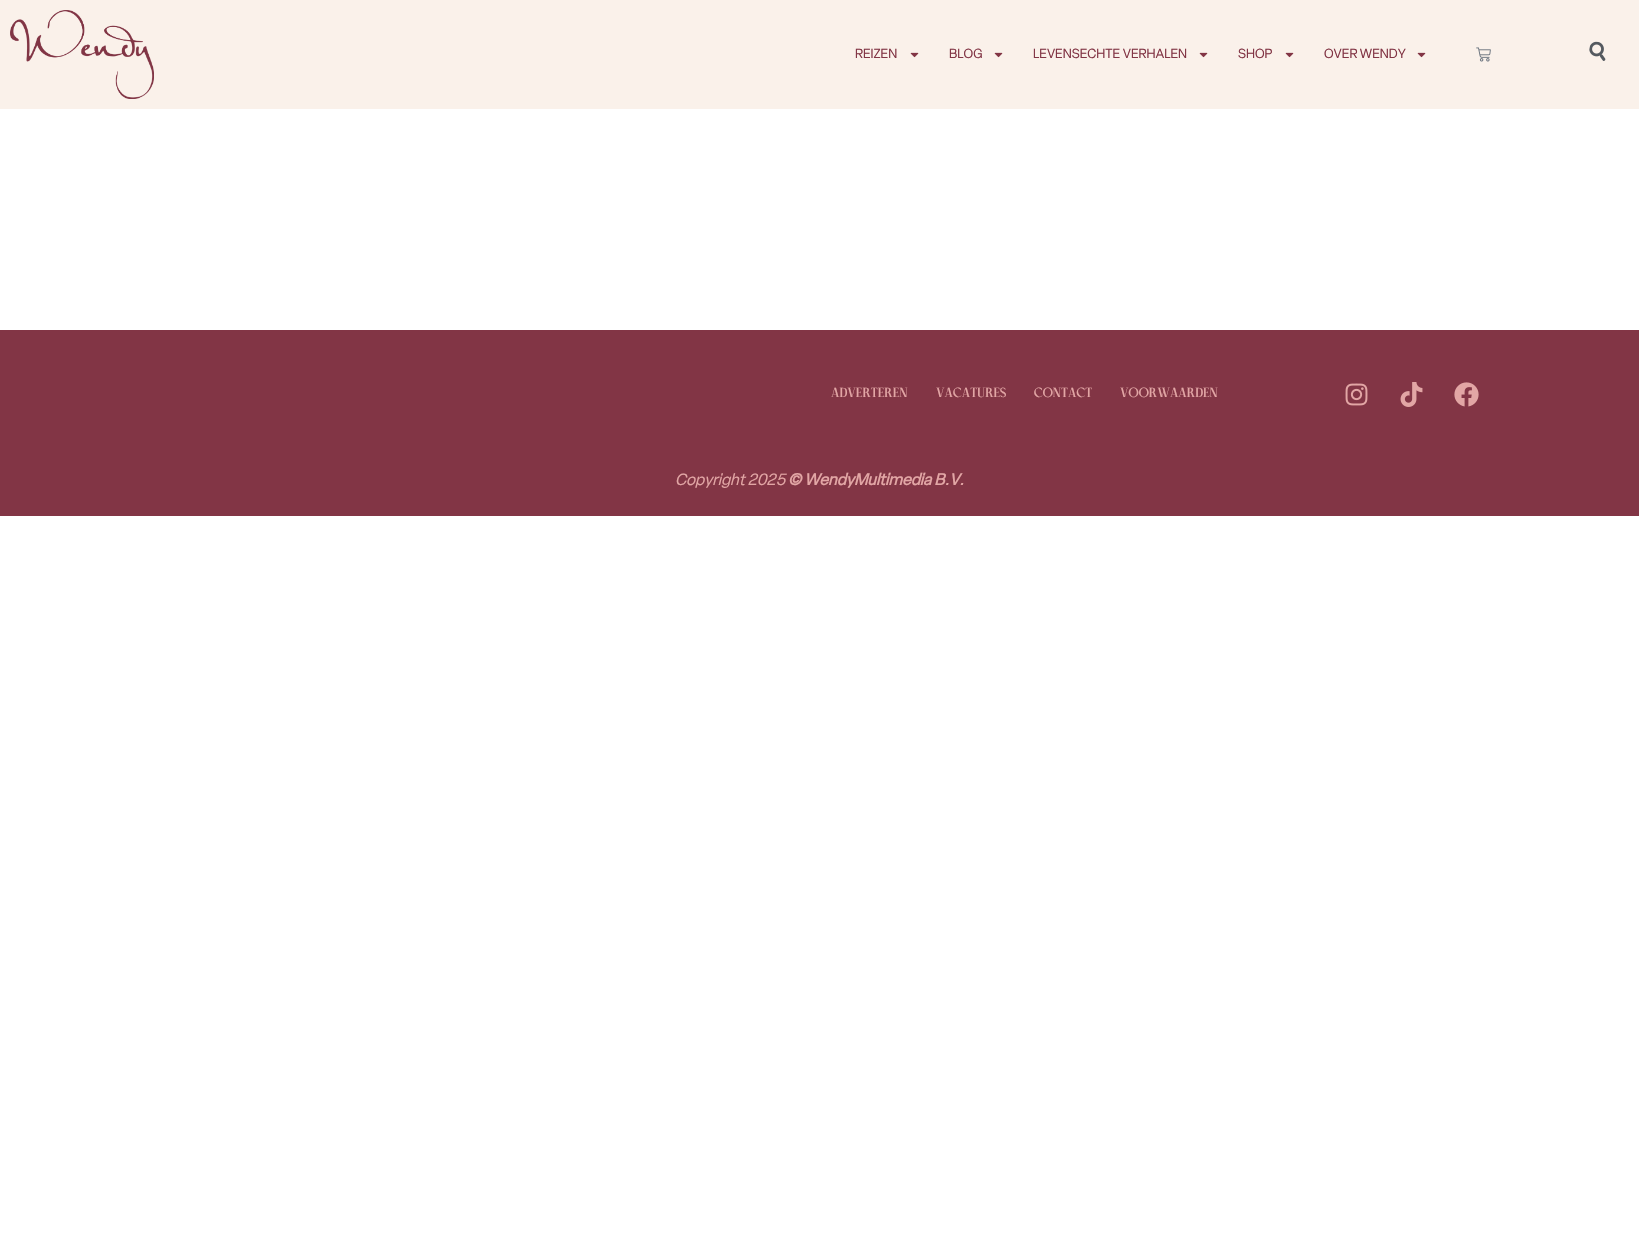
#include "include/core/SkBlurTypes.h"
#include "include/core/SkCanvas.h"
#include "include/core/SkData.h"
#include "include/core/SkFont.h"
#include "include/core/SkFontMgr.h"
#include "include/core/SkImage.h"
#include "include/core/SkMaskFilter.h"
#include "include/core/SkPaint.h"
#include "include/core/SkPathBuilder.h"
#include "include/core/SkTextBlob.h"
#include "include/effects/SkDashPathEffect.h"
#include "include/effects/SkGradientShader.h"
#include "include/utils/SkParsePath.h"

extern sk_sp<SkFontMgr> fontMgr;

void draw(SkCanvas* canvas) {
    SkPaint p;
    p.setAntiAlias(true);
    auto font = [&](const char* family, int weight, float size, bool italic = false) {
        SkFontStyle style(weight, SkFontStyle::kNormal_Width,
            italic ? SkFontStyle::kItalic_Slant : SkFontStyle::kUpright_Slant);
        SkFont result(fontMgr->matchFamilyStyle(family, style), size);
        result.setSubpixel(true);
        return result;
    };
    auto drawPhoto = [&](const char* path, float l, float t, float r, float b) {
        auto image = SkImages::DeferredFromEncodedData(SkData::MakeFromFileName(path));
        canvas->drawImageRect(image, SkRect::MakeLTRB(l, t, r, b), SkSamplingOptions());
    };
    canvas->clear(0xFFFFFFFF);
    p.setColor(0xFFFAF1EA);
    canvas->drawRect(SkRect::MakeLTRB(0, 0, 1639, 109), p);
    drawPhoto("media/1.png", 10, 10, 154, 99);
    auto font1 = font("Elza", 400, 13);
    p.setColor(0xFF823545);
    canvas->drawString("REIZEN", 855, 58, font1, p);
    drawPhoto("media/2.png", 910, 52, 919, 58);
    canvas->drawString("BLOG", 949, 58, font1, p);
    drawPhoto("media/2.png", 994, 52, 1003, 58);
    canvas->drawString("LEVENSECHTE VERHALEN", 1033, 58, font1, p);
    drawPhoto("media/2.png", 1199, 52, 1208, 58);
    canvas->drawString("SHOP", 1238, 58, font1, p);
    drawPhoto("media/2.png", 1285, 52, 1294, 58);
    canvas->drawString("OVER WENDY", 1324, 58, font1, p);
    drawPhoto("media/2.png", 1417, 52, 1426, 58);
    drawPhoto("media/3.png", 1476, 47, 1491, 62);
    drawPhoto("media/4.png", 1589, 41, 1606, 61);
    canvas->drawRect(SkRect::MakeLTRB(0, 330, 1639, 516), p);
    auto font2 = font("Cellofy", 700, 13);
    p.setColor(0xFFE2A6A5);
    {
        const struct { const char* s; float x, y; } items[] = {
            {"ADVERTEREN", 831, 397},
            {"VACATURES", 936, 397},
            {"CONTACT", 1034, 397},
            {"VOORWAARDEN", 1120, 397},
        };
        for (auto [s, x, y] : items) {
            canvas->drawString(s, x, y, font2, p);
        }
    }
    drawPhoto("media/5.png", 1345, 383, 1368, 406);
    drawPhoto("media/6.png", 1400, 382, 1423, 407);
    drawPhoto("media/7.png", 1454, 382, 1479, 407);
    auto font3 = font("Elza", 400, 16, true);
    canvas->drawString("Copyright 2025", 675, 485, font3, p);
    auto font4 = font("Elza", 700, 16, true);
    canvas->drawString("© WendyMultimedia B.V.", 788, 485, font4, p);
}
